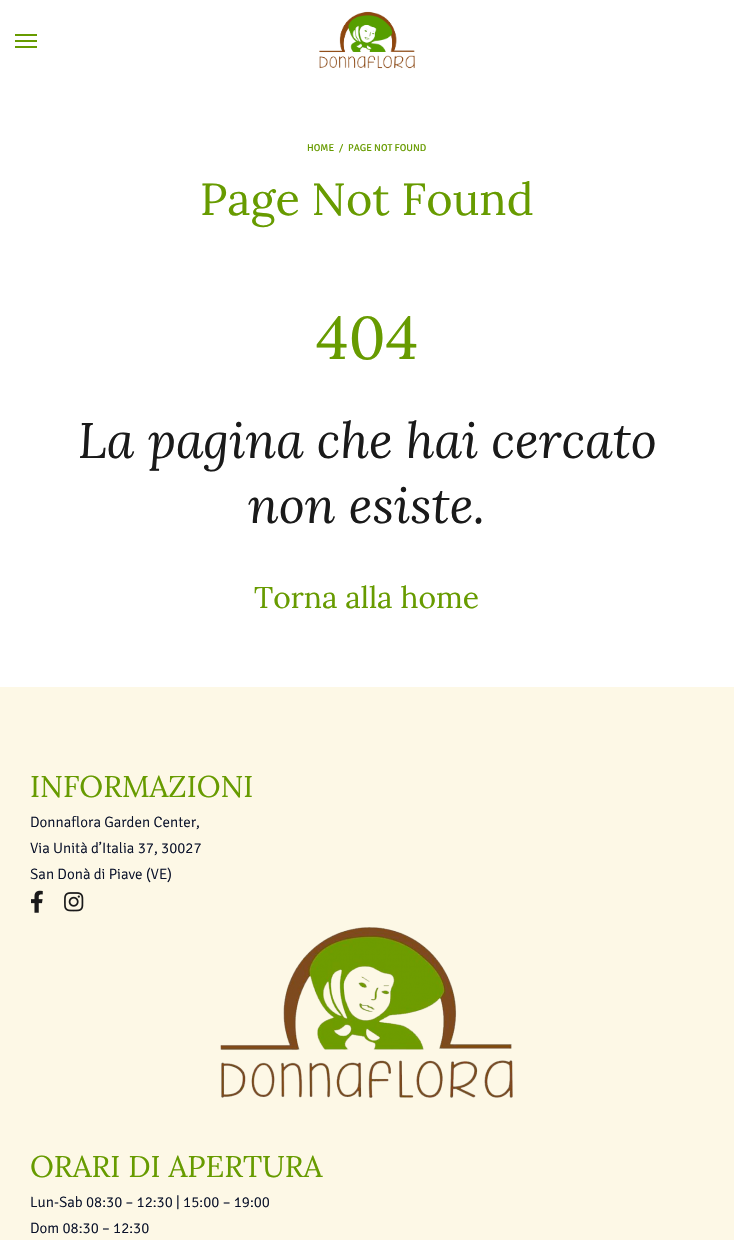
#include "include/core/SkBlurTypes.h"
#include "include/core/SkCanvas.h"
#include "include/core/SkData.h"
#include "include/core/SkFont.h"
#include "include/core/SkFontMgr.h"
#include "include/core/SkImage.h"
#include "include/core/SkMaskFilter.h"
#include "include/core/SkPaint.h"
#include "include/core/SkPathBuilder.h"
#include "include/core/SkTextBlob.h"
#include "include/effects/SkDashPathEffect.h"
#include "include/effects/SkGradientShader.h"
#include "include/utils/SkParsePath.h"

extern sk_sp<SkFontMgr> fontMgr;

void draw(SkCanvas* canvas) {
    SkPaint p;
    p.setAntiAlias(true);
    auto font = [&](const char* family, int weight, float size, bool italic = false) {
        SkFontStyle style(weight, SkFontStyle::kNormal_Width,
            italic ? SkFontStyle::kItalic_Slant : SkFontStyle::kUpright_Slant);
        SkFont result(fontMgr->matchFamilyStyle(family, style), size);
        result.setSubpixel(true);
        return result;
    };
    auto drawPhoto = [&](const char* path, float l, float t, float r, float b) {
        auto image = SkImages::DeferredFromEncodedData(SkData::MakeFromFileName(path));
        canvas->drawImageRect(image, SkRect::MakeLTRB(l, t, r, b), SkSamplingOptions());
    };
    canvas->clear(0xFFFFFFFF);
    {
        const struct { float l, t, r, b; SkColor color; } items[] = {
            {15, 40, 37, 42, 0xFF679B00},
            {15, 34, 37, 36, 0xFF679B00},
            {15, 46, 37, 48, 0xFF679B00},
        };
        for (auto [l, t, r, b, color] : items) {
            p.setColor(color);
            canvas->drawRect(SkRect::MakeLTRB(l, t, r, b), p);
        }
    }
    drawPhoto("media/1.png", 319, 11, 415, 69);
    auto font1 = font("Signika", 400, 10);
    {
        const struct { const char* s; float x, y; } items[] = {
            {"HOME", 307, 151},
            {"/", 339, 151},
            {"PAGE NOT FOUND", 348, 151},
        };
        for (auto [s, x, y] : items) {
            canvas->drawString(s, x, y, font1, p);
        }
    }
    auto font2 = font("Lora", 400, 45);
    canvas->drawString("Page Not Found", 200, 215, font2, p);
    auto font3 = font("Lora", 400, 60);
    canvas->drawString("404", 316, 359, font3, p);
    auto font4 = font("Lora", 400, 50, true);
    p.setColor(0xFF1A1A1A);
    canvas->drawString("La pagina che hai cercato", 78, 458, font4, p);
    canvas->drawString("non esiste.", 248, 523, font4, p);
    auto font5 = font("Lora", 400, 30);
    p.setColor(0xFF679B00);
    canvas->drawString("Torna alla home", 254, 608, font5, p);
    p.setColor(0xFFFDF8E6);
    canvas->drawRect(SkRect::MakeLTRB(0, 687, 734, 1240), p);
    p.setColor(0xFF679B00);
    canvas->drawString("INFORMAZIONI", 30, 797, font5, p);
    auto font6 = font("Signika", 300, 15);
    p.setColor(0xFF0A122A);
    {
        const struct { const char* s; float x, y; } items[] = {
            {"Donnaflora Garden Center,", 30, 827},
            {"Via Unità d’Italia 37, 30027", 30, 853},
            {"San Donà di Piave (VE)", 30, 879},
        };
        for (auto [s, x, y] : items) {
            canvas->drawString(s, x, y, font6, p);
        }
    }
    drawPhoto("media/2.png", 31, 890, 43, 913);
    drawPhoto("media/3.png", 64, 892, 84, 912);
    drawPhoto("media/4.png", 220, 927, 513, 1098);
    p.setColor(0xFF679B00);
    canvas->drawString("ORARI DI APERTURA", 30, 1177, font5, p);
    p.setColor(0xFF0A122A);
    canvas->drawString("Lun-Sab 08:30 – 12:30 | 15:00 – 19:00", 30, 1207, font6, p);
    canvas->drawString("Dom 08:30 – 12:30", 30, 1233, font6, p);
}
